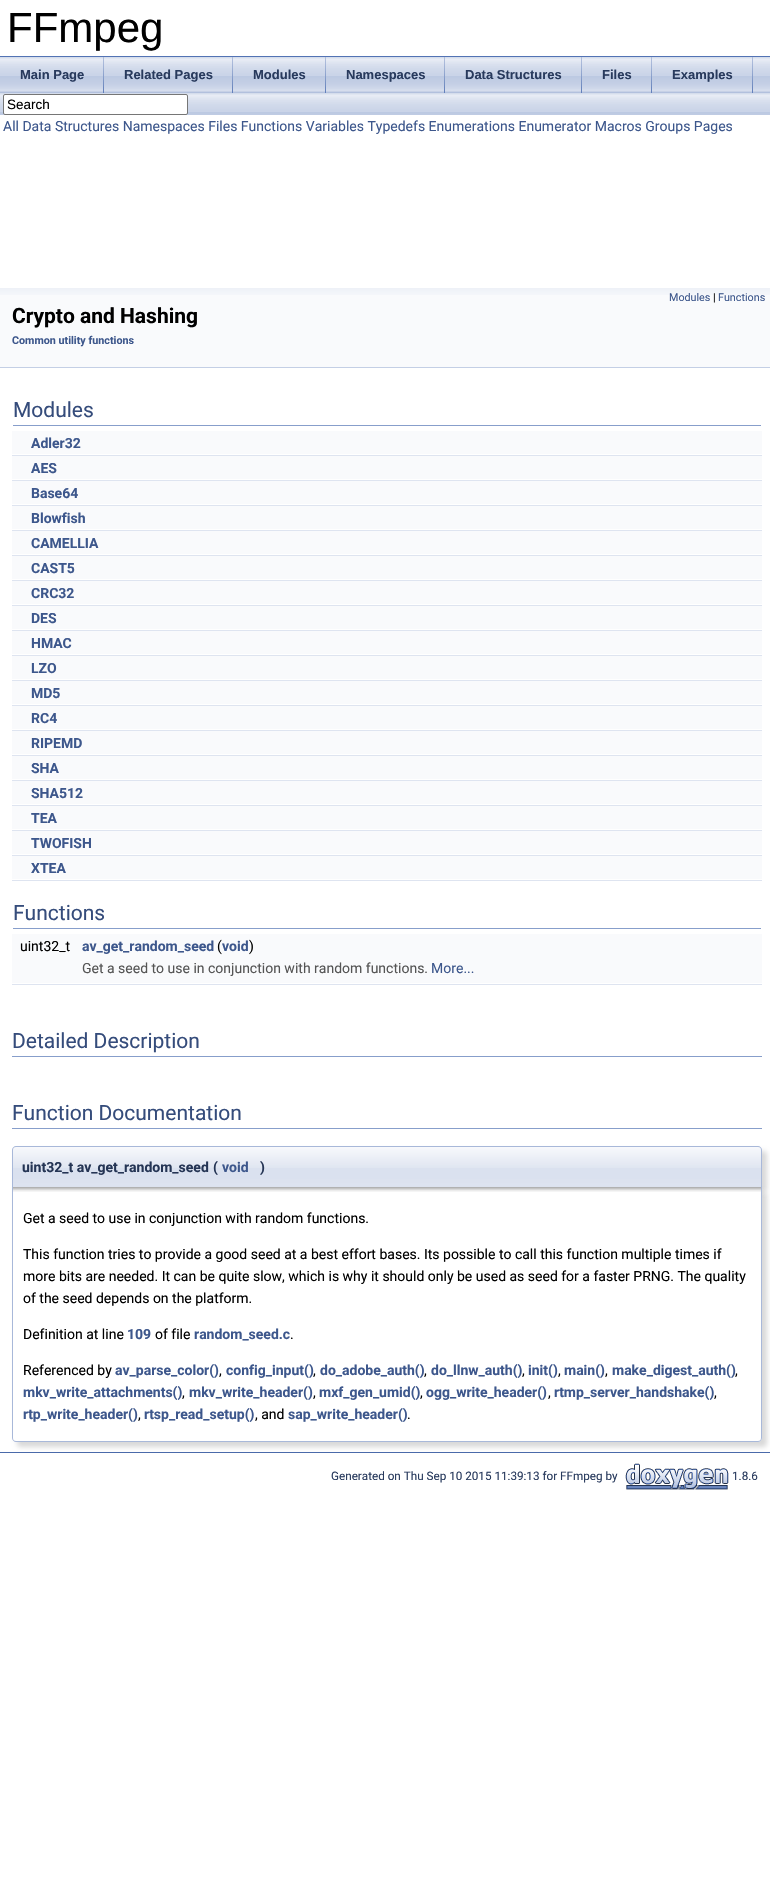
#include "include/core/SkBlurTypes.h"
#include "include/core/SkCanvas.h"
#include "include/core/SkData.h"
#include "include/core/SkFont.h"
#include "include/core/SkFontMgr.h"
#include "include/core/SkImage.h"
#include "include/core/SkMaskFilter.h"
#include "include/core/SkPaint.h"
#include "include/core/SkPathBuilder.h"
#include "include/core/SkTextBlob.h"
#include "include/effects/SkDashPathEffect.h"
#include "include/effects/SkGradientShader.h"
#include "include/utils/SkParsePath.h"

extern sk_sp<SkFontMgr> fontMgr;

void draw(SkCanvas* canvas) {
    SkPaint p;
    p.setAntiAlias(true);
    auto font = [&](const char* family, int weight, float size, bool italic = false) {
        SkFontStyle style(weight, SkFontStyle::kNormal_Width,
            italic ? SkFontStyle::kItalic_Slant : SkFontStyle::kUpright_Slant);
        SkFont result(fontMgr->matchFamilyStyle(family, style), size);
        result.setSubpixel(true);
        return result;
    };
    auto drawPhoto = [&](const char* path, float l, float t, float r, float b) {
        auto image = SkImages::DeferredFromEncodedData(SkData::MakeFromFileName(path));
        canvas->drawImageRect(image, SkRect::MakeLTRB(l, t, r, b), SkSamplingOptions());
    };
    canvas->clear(0xFFFFFFFF);
    p.setColor(0xFF5373B4);
    canvas->drawRect(SkRect::MakeLTRB(0, 56, 770, 57), p);
    auto font1 = font("Liberation Sans", 400, 42);
    p.setColor(0xFF000000);
    canvas->drawString("FFmpeg", 7, 42, font1, p);
    drawPhoto("media/1.png", 0, 57, 770, 115);
    drawPhoto("media/2.png", 103, 57, 104, 93);
    auto font2 = font("Liberation Sans", 700, 13);
    p.setColor(0xFF283A5D);
    canvas->drawString("Main Page", 20, 79, font2, p);
    drawPhoto("media/2.png", 232, 57, 233, 93);
    canvas->drawString("Related Pages", 124, 79, font2, p);
    drawPhoto("media/2.png", 325, 57, 326, 93);
    canvas->drawString("Modules", 253, 79, font2, p);
    drawPhoto("media/2.png", 444, 57, 445, 93);
    canvas->drawString("Namespaces", 346, 79, font2, p);
    drawPhoto("media/2.png", 581, 57, 582, 93);
    canvas->drawString("Data Structures", 465, 79, font2, p);
    drawPhoto("media/2.png", 651, 57, 652, 93);
    canvas->drawString("Files", 602, 79, font2, p);
    drawPhoto("media/2.png", 752, 57, 753, 93);
    canvas->drawString("Examples", 672, 79, font2, p);
    p.setColor(0xFFFFFFFF);
    canvas->drawRoundRect(SkRect::MakeLTRB(3.5f, 94.5f, 187.5f, 114.5f), 1.5f, 1.5f, p);
    p.setStyle(SkPaint::kStroke_Style);
    p.setStrokeWidth(1);
    p.setColor(0xFF767676);
    canvas->drawRoundRect(SkRect::MakeLTRB(3.5f, 94.5f, 187.5f, 114.5f), 1.5f, 1.5f, p);
    auto font3 = font("Liberation Sans", 400, 13.5f);
    p.setStyle(SkPaint::kFill_Style);
    p.setColor(0xFF000000);
    canvas->drawString("Search", 7, 109, font3, p);
    auto font4 = font("Roboto", 400, 14);
    p.setColor(0xFF3D578C);
    canvas->drawString("All Data Structures Namespaces Files Functions Variables Typedefs Enumerations Enumerator Macros Groups Pages", 3, 131, font4, p);
    p.setColor(0xFFF9FAFC);
    canvas->drawRect(SkRect::MakeLTRB(0, 295, 770, 367), p);
    drawPhoto("media/3.png", 0, 287, 770, 295);
    p.setColor(0xFFC4CFE5);
    canvas->drawRect(SkRect::MakeLTRB(0, 367, 770, 368), p);
    auto font5 = font("Roboto", 400, 10.75f);
    p.setColor(0xFF3D578C);
    canvas->drawString("Modules", 669, 301, font5, p);
    p.setColor(0xFF000000);
    canvas->drawString("|", 713, 301, font5, p);
    p.setColor(0xFF3D578C);
    canvas->drawString("Functions", 718, 301, font5, p);
    auto font6 = font("Roboto", 700, 21);
    p.setColor(0xFF000000);
    canvas->drawString("Crypto and Hashing", 12, 323, font6, p);
    auto font7 = font("Roboto", 700, 10.75f);
    p.setColor(0xFF3D578C);
    canvas->drawString("Common utility functions", 12, 344, font7, p);
    p.setColor(0xFF879ECB);
    canvas->drawRect(SkRect::MakeLTRB(13, 425, 761, 426), p);
    auto font8 = font("Roboto", 400, 21);
    p.setColor(0xFF354C7B);
    canvas->drawString("Modules", 13, 417, font8, p);
    p.setColor(0xFFF9FAFC);
    canvas->drawRect(SkRect::MakeLTRB(12, 431, 762, 454), p);
    auto font9 = font("Roboto", 700, 14);
    p.setColor(0xFF3D578C);
    canvas->drawString("Adler32", 31, 448, font9, p);
    p.setColor(0xFFDEE4F0);
    canvas->drawRect(SkRect::MakeLTRB(12, 455, 762, 456), p);
    p.setColor(0xFFF9FAFC);
    canvas->drawRect(SkRect::MakeLTRB(12, 456, 762, 479), p);
    p.setColor(0xFF3D578C);
    canvas->drawString("AES", 31, 473, font9, p);
    p.setColor(0xFFDEE4F0);
    canvas->drawRect(SkRect::MakeLTRB(12, 480, 762, 481), p);
    p.setColor(0xFFF9FAFC);
    canvas->drawRect(SkRect::MakeLTRB(12, 481, 762, 504), p);
    p.setColor(0xFF3D578C);
    canvas->drawString("Base64", 31, 498, font9, p);
    p.setColor(0xFFDEE4F0);
    canvas->drawRect(SkRect::MakeLTRB(12, 505, 762, 506), p);
    p.setColor(0xFFF9FAFC);
    canvas->drawRect(SkRect::MakeLTRB(12, 506, 762, 529), p);
    p.setColor(0xFF3D578C);
    canvas->drawString("Blowfish", 31, 523, font9, p);
    p.setColor(0xFFDEE4F0);
    canvas->drawRect(SkRect::MakeLTRB(12, 530, 762, 531), p);
    p.setColor(0xFFF9FAFC);
    canvas->drawRect(SkRect::MakeLTRB(12, 531, 762, 554), p);
    p.setColor(0xFF3D578C);
    canvas->drawString("CAMELLIA", 31, 548, font9, p);
    p.setColor(0xFFDEE4F0);
    canvas->drawRect(SkRect::MakeLTRB(12, 555, 762, 556), p);
    p.setColor(0xFFF9FAFC);
    canvas->drawRect(SkRect::MakeLTRB(12, 556, 762, 579), p);
    p.setColor(0xFF3D578C);
    canvas->drawString("CAST5", 31, 573, font9, p);
    p.setColor(0xFFDEE4F0);
    canvas->drawRect(SkRect::MakeLTRB(12, 580, 762, 581), p);
    p.setColor(0xFFF9FAFC);
    canvas->drawRect(SkRect::MakeLTRB(12, 581, 762, 604), p);
    p.setColor(0xFF3D578C);
    canvas->drawString("CRC32", 31, 598, font9, p);
    p.setColor(0xFFDEE4F0);
    canvas->drawRect(SkRect::MakeLTRB(12, 605, 762, 606), p);
    p.setColor(0xFFF9FAFC);
    canvas->drawRect(SkRect::MakeLTRB(12, 606, 762, 629), p);
    p.setColor(0xFF3D578C);
    canvas->drawString("DES", 31, 623, font9, p);
    p.setColor(0xFFDEE4F0);
    canvas->drawRect(SkRect::MakeLTRB(12, 630, 762, 631), p);
    p.setColor(0xFFF9FAFC);
    canvas->drawRect(SkRect::MakeLTRB(12, 631, 762, 654), p);
    p.setColor(0xFF3D578C);
    canvas->drawString("HMAC", 31, 648, font9, p);
    p.setColor(0xFFDEE4F0);
    canvas->drawRect(SkRect::MakeLTRB(12, 655, 762, 656), p);
    p.setColor(0xFFF9FAFC);
    canvas->drawRect(SkRect::MakeLTRB(12, 656, 762, 679), p);
    p.setColor(0xFF3D578C);
    canvas->drawString("LZO", 31, 673, font9, p);
    p.setColor(0xFFDEE4F0);
    canvas->drawRect(SkRect::MakeLTRB(12, 680, 762, 681), p);
    p.setColor(0xFFF9FAFC);
    canvas->drawRect(SkRect::MakeLTRB(12, 681, 762, 704), p);
    p.setColor(0xFF3D578C);
    canvas->drawString("MD5", 31, 698, font9, p);
    p.setColor(0xFFDEE4F0);
    canvas->drawRect(SkRect::MakeLTRB(12, 705, 762, 706), p);
    p.setColor(0xFFF9FAFC);
    canvas->drawRect(SkRect::MakeLTRB(12, 706, 762, 729), p);
    p.setColor(0xFF3D578C);
    canvas->drawString("RC4", 31, 723, font9, p);
    p.setColor(0xFFDEE4F0);
    canvas->drawRect(SkRect::MakeLTRB(12, 730, 762, 731), p);
    p.setColor(0xFFF9FAFC);
    canvas->drawRect(SkRect::MakeLTRB(12, 731, 762, 754), p);
    p.setColor(0xFF3D578C);
    canvas->drawString("RIPEMD", 31, 748, font9, p);
    p.setColor(0xFFDEE4F0);
    canvas->drawRect(SkRect::MakeLTRB(12, 755, 762, 756), p);
    p.setColor(0xFFF9FAFC);
    canvas->drawRect(SkRect::MakeLTRB(12, 756, 762, 779), p);
    p.setColor(0xFF3D578C);
    canvas->drawString("SHA", 31, 773, font9, p);
    p.setColor(0xFFDEE4F0);
    canvas->drawRect(SkRect::MakeLTRB(12, 780, 762, 781), p);
    p.setColor(0xFFF9FAFC);
    canvas->drawRect(SkRect::MakeLTRB(12, 781, 762, 804), p);
    p.setColor(0xFF3D578C);
    canvas->drawString("SHA512", 31, 798, font9, p);
    p.setColor(0xFFDEE4F0);
    canvas->drawRect(SkRect::MakeLTRB(12, 805, 762, 806), p);
    p.setColor(0xFFF9FAFC);
    canvas->drawRect(SkRect::MakeLTRB(12, 806, 762, 829), p);
    p.setColor(0xFF3D578C);
    canvas->drawString("TEA", 31, 823, font9, p);
    p.setColor(0xFFDEE4F0);
    canvas->drawRect(SkRect::MakeLTRB(12, 830, 762, 831), p);
    p.setColor(0xFFF9FAFC);
    canvas->drawRect(SkRect::MakeLTRB(12, 831, 762, 854), p);
    p.setColor(0xFF3D578C);
    canvas->drawString("TWOFISH", 31, 848, font9, p);
    p.setColor(0xFFDEE4F0);
    canvas->drawRect(SkRect::MakeLTRB(12, 855, 762, 856), p);
    p.setColor(0xFFF9FAFC);
    canvas->drawRect(SkRect::MakeLTRB(12, 856, 762, 879), p);
    p.setColor(0xFF3D578C);
    canvas->drawString("XTEA", 31, 873, font9, p);
    p.setColor(0xFFDEE4F0);
    canvas->drawRect(SkRect::MakeLTRB(12, 880, 762, 881), p);
    p.setColor(0xFF879ECB);
    canvas->drawRect(SkRect::MakeLTRB(13, 928, 761, 929), p);
    p.setColor(0xFF354C7B);
    canvas->drawString("Functions", 13, 920, font8, p);
    p.setColor(0xFFF9FAFC);
    canvas->drawRect(SkRect::MakeLTRB(12, 934, 762, 957), p);
    p.setColor(0xFF000000);
    canvas->drawString("uint32_t", 20, 951, font4, p);
    p.setColor(0xFF3D578C);
    canvas->drawString("av_get_random_seed", 82, 951, font9, p);
    p.setColor(0xFF000000);
    canvas->drawString("(", 217, 951, font4, p);
    p.setColor(0xFF3D578C);
    canvas->drawString("void", 222, 951, font9, p);
    p.setColor(0xFF000000);
    canvas->drawString(")", 249, 951, font4, p);
    p.setColor(0xFFF9FAFC);
    canvas->drawRect(SkRect::MakeLTRB(12, 957, 762, 983), p);
    p.setColor(0xFF555555);
    canvas->drawString("Get a seed to use in conjunction with random functions.", 82, 973, font4, p);
    p.setColor(0xFF3D578C);
    canvas->drawString("More...", 431, 973, font4, p);
    p.setColor(0xFFDEE4F0);
    canvas->drawRect(SkRect::MakeLTRB(12, 984, 762, 985), p);
    p.setColor(0xFF879ECB);
    canvas->drawRect(SkRect::MakeLTRB(12, 1056, 762, 1057), p);
    p.setColor(0xFF354C7B);
    canvas->drawString("Detailed Description", 12, 1048, font8, p);
    p.setColor(0xFF879ECB);
    canvas->drawRect(SkRect::MakeLTRB(12, 1128, 762, 1129), p);
    p.setColor(0xFF354C7B);
    canvas->drawString("Function Documentation", 12, 1120, font8, p);
    p.setColor(0x26000000);
    p.setMaskFilter(SkMaskFilter::MakeBlur(kNormal_SkBlurStyle, 2.5f));
    canvas->drawRoundRect(SkRect::MakeLTRB(17, 1151, 767, 1192), 4, 4, p);
    p.setMaskFilter(nullptr);
    drawPhoto("media/4.png", 12, 1147, 762, 1187);
    p.setColor(0xFFA8B8D9);
    canvas->drawPath(SkPathBuilder(SkPathFillType::kEvenOdd).moveTo(16, 1146).lineTo(758, 1146).cubicTo(760, 1146, 762, 1148, 762, 1150).lineTo(762, 1187).lineTo(12, 1187).lineTo(12, 1150).cubicTo(12, 1148, 14, 1146, 16, 1146).close().moveTo(16, 1147).lineTo(758, 1147).cubicTo(760, 1147, 761, 1148, 761, 1150).lineTo(761, 1187).lineTo(13, 1187).lineTo(13, 1150).cubicTo(13, 1148, 14, 1147, 16, 1147).close().detach(), p);
    p.setColor(0xFF253555);
    canvas->drawString("uint32_t av_get_random_seed", 22, 1172, font9, p);
    canvas->drawString("(", 213, 1172, font9, p);
    p.setColor(0xFF3D578C);
    canvas->drawString("void", 222, 1172, font9, p);
    p.setColor(0xFF253555);
    canvas->drawString(")", 260, 1172, font9, p);
    p.setColor(0x26000000);
    p.setMaskFilter(SkMaskFilter::MakeBlur(kNormal_SkBlurStyle, 2.5f));
    canvas->drawRoundRect(SkRect::MakeLTRB(17, 1192, 767, 1447), 4, 4, p);
    p.setMaskFilter(nullptr);
    p.setColor(0xFFFFFFFF);
    canvas->drawPath(SkPathBuilder().moveTo(12, 1187).lineTo(762, 1187).lineTo(762, 1438).cubicTo(762, 1440, 760, 1442, 758, 1442).lineTo(16, 1442).cubicTo(14, 1442, 12, 1440, 12, 1438).close().detach(), p);
    drawPhoto("media/5.png", 13, 1187, 761, 1192);
    p.setColor(0xFFA8B8D9);
    canvas->drawPath(SkPathBuilder(SkPathFillType::kEvenOdd).moveTo(12, 1187).lineTo(762, 1187).lineTo(762, 1438).cubicTo(762, 1440, 760, 1442, 758, 1442).lineTo(16, 1442).cubicTo(14, 1442, 12, 1440, 12, 1438).close().moveTo(13, 1187).lineTo(761, 1187).lineTo(761, 1438).cubicTo(761, 1440, 760, 1441, 758, 1441).lineTo(16, 1441).cubicTo(14, 1441, 13, 1440, 13, 1438).close().detach(), p);
    p.setColor(0xFF000000);
    {
        const struct { const char* s; float x, y; } items[] = {
            {"Get a seed to use in conjunction with random functions.", 23, 1223},
            {"This function tries to provide a good seed at a best effort bases. Its possible to call this function multiple times if", 23, 1259},
            {"more bits are needed. It can be quite slow, which is why it should only be used as seed for a faster PRNG. The quality", 23, 1281},
            {"of the seed depends on the platform.", 23, 1303},
            {"Definition at line", 23, 1339},
        };
        for (auto [s, x, y] : items) {
            canvas->drawString(s, x, y, font4, p);
        }
    }
    p.setColor(0xFF3D578C);
    canvas->drawString("109", 127, 1339, font9, p);
    p.setColor(0xFF000000);
    canvas->drawString("of file", 155, 1339, font4, p);
    p.setColor(0xFF3D578C);
    canvas->drawString("random_seed.c", 194, 1339, font9, p);
    p.setColor(0xFF000000);
    canvas->drawString(".", 290, 1339, font4, p);
    canvas->drawString("Referenced by", 23, 1375, font4, p);
    p.setColor(0xFF3D578C);
    canvas->drawString("av_parse_color()", 115, 1375, font9, p);
    p.setColor(0xFF000000);
    canvas->drawString(",", 219, 1375, font4, p);
    p.setColor(0xFF3D578C);
    canvas->drawString("config_input()", 226, 1375, font9, p);
    p.setColor(0xFF000000);
    canvas->drawString(",", 313, 1375, font4, p);
    p.setColor(0xFF3D578C);
    canvas->drawString("do_adobe_auth()", 320, 1375, font9, p);
    p.setColor(0xFF000000);
    canvas->drawString(",", 424, 1375, font4, p);
    p.setColor(0xFF3D578C);
    canvas->drawString("do_llnw_auth()", 431, 1375, font9, p);
    p.setColor(0xFF000000);
    canvas->drawString(",", 522, 1375, font4, p);
    p.setColor(0xFF3D578C);
    canvas->drawString("init()", 528, 1375, font9, p);
    p.setColor(0xFF000000);
    canvas->drawString(",", 558, 1375, font4, p);
    p.setColor(0xFF3D578C);
    canvas->drawString("main()", 564, 1375, font9, p);
    p.setColor(0xFF000000);
    canvas->drawString(",", 605, 1375, font4, p);
    p.setColor(0xFF3D578C);
    canvas->drawString("make_digest_auth()", 612, 1375, font9, p);
    p.setColor(0xFF000000);
    canvas->drawString(",", 735, 1375, font4, p);
    p.setColor(0xFF3D578C);
    canvas->drawString("mkv_write_attachments()", 23, 1397, font9, p);
    p.setColor(0xFF000000);
    canvas->drawString(",", 182, 1397, font4, p);
    p.setColor(0xFF3D578C);
    canvas->drawString("mkv_write_header()", 189, 1397, font9, p);
    p.setColor(0xFF000000);
    canvas->drawString(",", 313, 1397, font4, p);
    p.setColor(0xFF3D578C);
    canvas->drawString("mxf_gen_umid()", 319, 1397, font9, p);
    p.setColor(0xFF000000);
    canvas->drawString(",", 420, 1397, font4, p);
    p.setColor(0xFF3D578C);
    canvas->drawString("ogg_write_header()", 426, 1397, font9, p);
    p.setColor(0xFF000000);
    canvas->drawString(",", 548, 1397, font4, p);
    p.setColor(0xFF3D578C);
    canvas->drawString("rtmp_server_handshake()", 554, 1397, font9, p);
    p.setColor(0xFF000000);
    canvas->drawString(",", 714, 1397, font4, p);
    p.setColor(0xFF3D578C);
    canvas->drawString("rtp_write_header()", 23, 1419, font9, p);
    p.setColor(0xFF000000);
    canvas->drawString(",", 138, 1419, font4, p);
    p.setColor(0xFF3D578C);
    canvas->drawString("rtsp_read_setup()", 144, 1419, font9, p);
    p.setColor(0xFF000000);
    canvas->drawString(", and", 255, 1419, font4, p);
    p.setColor(0xFF3D578C);
    canvas->drawString("sap_write_header()", 288, 1419, font9, p);
    p.setColor(0xFF000000);
    canvas->drawString(".", 407, 1419, font4, p);
    p.setColor(0xFF4A6AAA);
    canvas->drawRect(SkRect::MakeLTRB(0, 1452, 770, 1453), p);
    auto font10 = font("Roboto", 400, 11.7f);
    p.setColor(0xFF283A5D);
    canvas->drawString("Generated on Thu Sep 10 2015 11:39:13 for FFmpeg by", 331, 1480, font10, p);
    drawPhoto("media/6.png", 625, 1463, 729, 1490);
    canvas->drawString("1.8.6", 732, 1480, font10, p);
}
